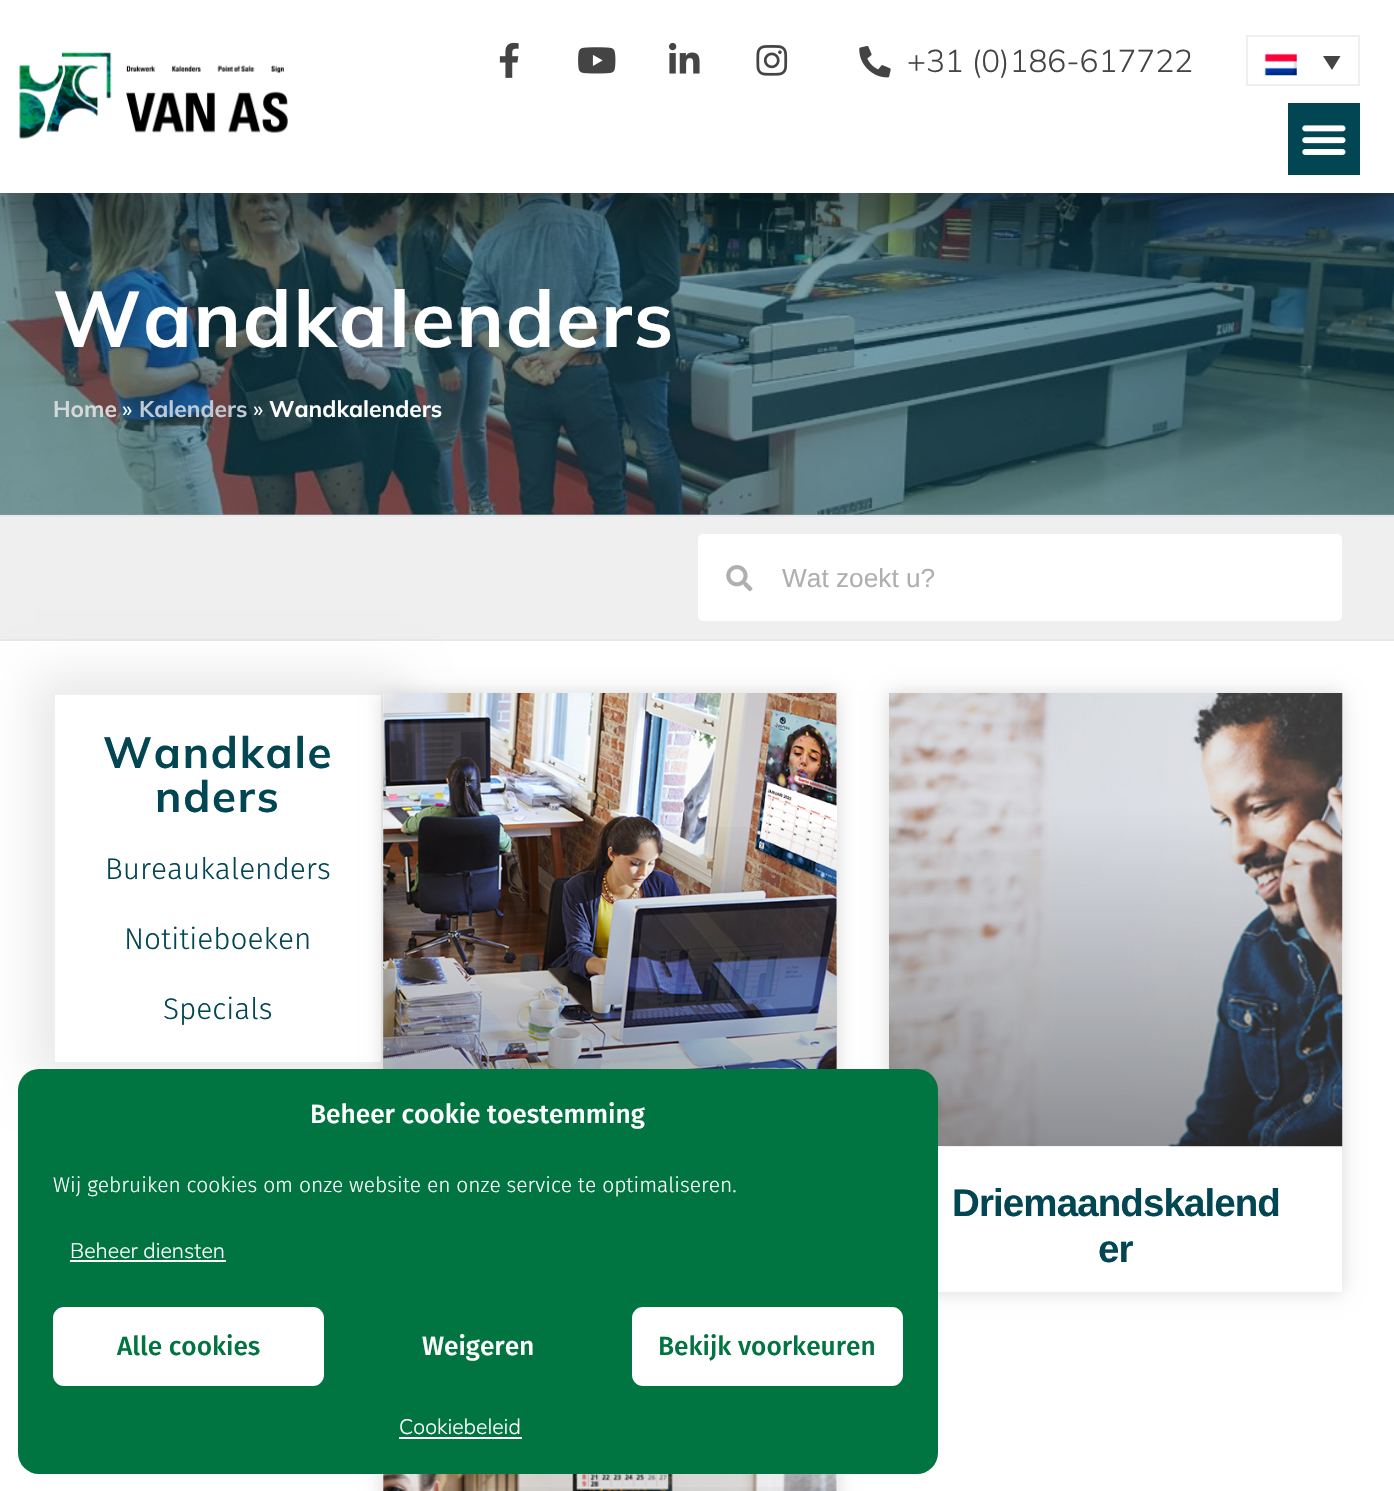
#include "include/core/SkBlurTypes.h"
#include "include/core/SkCanvas.h"
#include "include/core/SkData.h"
#include "include/core/SkFont.h"
#include "include/core/SkFontMgr.h"
#include "include/core/SkImage.h"
#include "include/core/SkMaskFilter.h"
#include "include/core/SkPaint.h"
#include "include/core/SkPathBuilder.h"
#include "include/core/SkTextBlob.h"
#include "include/effects/SkDashPathEffect.h"
#include "include/effects/SkGradientShader.h"
#include "include/utils/SkParsePath.h"

extern sk_sp<SkFontMgr> fontMgr;

void draw(SkCanvas* canvas) {
    SkPaint p;
    p.setAntiAlias(true);
    auto font = [&](const char* family, int weight, float size, bool italic = false) {
        SkFontStyle style(weight, SkFontStyle::kNormal_Width,
            italic ? SkFontStyle::kItalic_Slant : SkFontStyle::kUpright_Slant);
        SkFont result(fontMgr->matchFamilyStyle(family, style), size);
        result.setSubpixel(true);
        return result;
    };
    auto drawTracked = [&](const char* s, float x, float y, const SkFont& font, const SkPaint& ink, float letter, float word) {
        std::vector<SkGlyphID> glyphs(font.countText(s, strlen(s), SkTextEncoding::kUTF8));
        std::vector<float> xs(glyphs.size());
        font.textToGlyphs(s, strlen(s), SkTextEncoding::kUTF8, glyphs);
        font.getXPos(glyphs, xs, x);
        float extra = 0;
        for (size_t i = 0; i < glyphs.size(); i++) {
            xs[i] += extra;
            extra += letter + word * (glyphs[i] == font.unicharToGlyph(' '));
        }
        canvas->drawTextBlob(SkTextBlob::MakeFromPosHGlyphs(glyphs, xs, y, font), 0, 0, ink);
    };
    auto drawPhoto = [&](const char* path, float l, float t, float r, float b) {
        auto image = SkImages::DeferredFromEncodedData(SkData::MakeFromFileName(path));
        canvas->drawImageRect(image, SkRect::MakeLTRB(l, t, r, b), SkSamplingOptions());
    };
    canvas->clear(0xFFFFFFFF);
    p.setColor(0xFF81A3AA);
    canvas->drawRect(SkRect::MakeLTRB(0, 514, 1394, 515), p);
    drawPhoto("media/9.png", 0, 193, 1394, 515);
    p.setColor(0x63000000);
    p.setMaskFilter(SkMaskFilter::MakeBlur(kNormal_SkBlurStyle, 22));
    canvas->drawRect(SkRect::MakeLTRB(0, 35, 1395, 228), p);
    p.setMaskFilter(nullptr);
    p.setColor(0xFFFFFFFF);
    canvas->drawRect(SkRect::MakeLTRB(0, 0, 1394, 193), p);
    drawPhoto("media/1.png", 19, 52, 288, 139);
    drawPhoto("media/2.png", 499, 42, 519, 78);
    drawPhoto("media/3.png", 578, 47, 616, 74);
    drawPhoto("media/4.png", 669, 42, 700, 74);
    drawPhoto("media/5.png", 756, 45, 788, 76);
    drawPhoto("media/6.png", 859, 46, 891, 78);
    auto font1 = font("Mulish", 300, 31.5f);
    p.setColor(0xFF444444);
    canvas->drawString("+31 (0)186-617722", 907, 72, font1, p);
    p.setStyle(SkPaint::kStroke_Style);
    p.setStrokeWidth(2);
    p.setColor(0xFFEFEFEF);
    canvas->drawRect(SkRect::MakeLTRB(1247, 36, 1359, 85), p);
    drawPhoto("media/7.png", 1264, 53, 1297, 76);
    p.setStyle(SkPaint::kFill_Style);
    p.setColor(0xFF444444);
    canvas->drawPath(SkPathBuilder().moveTo(1323, 56).lineTo(1340.5f, 56).lineTo(1332, 70).close().detach(), p);
    p.setColor(0xFF024654);
    canvas->drawRect(SkRect::MakeLTRB(1288, 103, 1360, 175), p);
    drawPhoto("media/8.png", 1302, 125, 1346, 155);
    auto font2 = font("Mulish", 700, 78.75f);
    p.setColor(0xFFFFFFFF);
    drawTracked("Wandkalenders", 53, 347, font2, p, 1.75f, 0);
    auto font3 = font("Mulish", 700, 22.75f);
    p.setColor(0xFFD4D8D9);
    canvas->drawString("Home", 53, 417, font3, p);
    auto font4 = font("Mulish", 400, 22.75f);
    p.setColor(0xFFFFFFFF);
    canvas->drawString("»", 122, 417, font4, p);
    p.setColor(0xFFC0CAD4);
    canvas->drawString("Kalenders", 139, 417, font3, p);
    p.setColor(0xFFFFFFFF);
    canvas->drawString("»", 253, 417, font4, p);
    canvas->drawString("Wandkalenders", 269, 417, font3, p);
    {
        const struct { float l, t, r, b; SkColor color; } items[] = {
            {0, 517, 1394, 639, 0xFFEFEFEF},
            {0, 515, 1394, 517, 0xFFE8E8E8},
            {0, 639, 1394, 641, 0xFFE8E8E8},
        };
        for (auto [l, t, r, b, color] : items) {
            p.setColor(color);
            canvas->drawRect(SkRect::MakeLTRB(l, t, r, b), p);
        }
    }
    p.setColor(0xFFFFFFFF);
    canvas->drawRoundRect(SkRect::MakeLTRB(698, 534, 1342, 621), 5, 5, p);
    drawPhoto("media/10.png", 726, 565, 753, 592);
    auto font5 = font("Liberation Sans", 400, 26.25f);
    p.setColor(0xFFAFAFAF);
    canvas->drawString("Wat zoekt u?", 782, 587, font5, p);
    canvas->save();
    canvas->clipPath(SkPathBuilder(SkPathFillType::kEvenOdd).moveTo(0, 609).lineTo(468, 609).lineTo(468, 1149).lineTo(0, 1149).close().moveTo(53, 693).lineTo(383, 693).lineTo(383, 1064).lineTo(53, 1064).close().detach(), true);
    p.setColor(0x17000000);
    p.setMaskFilter(SkMaskFilter::MakeBlur(kNormal_SkBlurStyle, 22));
    canvas->drawRect(SkRect::MakeLTRB(35, 676, 401, 1082), p);
    p.setMaskFilter(nullptr);
    canvas->restore();
    p.setStyle(SkPaint::kStroke_Style);
    p.setColor(0xFFEFEFEF);
    canvas->drawRect(SkRect::MakeLTRB(54, 694, 382, 1063), p);
    auto font6 = font("Mulish", 700, 43.75f);
    p.setStyle(SkPaint::kFill_Style);
    p.setColor(0xFF024654);
    drawTracked("Wandkale", 103, 768, font6, p, 1.75f, 0);
    drawTracked("nders", 155, 812, font6, p, 1.75f, 0);
    auto font7 = font("Fira Sans", 300, 29.75f);
    {
        const struct { const char* s; float x, y; } items[] = {
            {"Bureaukalenders", 105, 879},
            {"Notitieboeken", 124, 949},
            {"Specials", 163, 1019},
        };
        for (auto [s, x, y] : items) {
            canvas->drawString(s, x, y, font7, p);
        }
    }
    p.setColor(0x26000000);
    p.setMaskFilter(SkMaskFilter::MakeBlur(kNormal_SkBlurStyle, 9));
    canvas->drawRect(SkRect::MakeLTRB(383, 693, 837, 1292), p);
    p.setMaskFilter(nullptr);
    p.setColor(0xFFFFFFFF);
    canvas->drawRect(SkRect::MakeLTRB(383, 693, 837, 1069), p);
    drawPhoto("media/11.png", 383, 693, 837, 1069);
    {
        const SkColor colors[] = {0x59000000, 0x00000000};
        const float stops[] = {0, 0.75f};
        const SkPoint ends[] = {{610, 1146}, {610, 693}};
        p.setShader(SkGradientShader::MakeLinear(ends, colors, stops, 2, SkTileMode::kClamp));
        p.setAlpha(255);
    }
    canvas->drawRect(SkRect::MakeLTRB(383, 827, 837, 1069), p);
    p.setShader(nullptr);
    p.setColor(0x26000000);
    p.setMaskFilter(SkMaskFilter::MakeBlur(kNormal_SkBlurStyle, 9));
    canvas->drawRect(SkRect::MakeLTRB(889, 693, 1342, 1292), p);
    p.setMaskFilter(nullptr);
    p.setColor(0xFFFFFFFF);
    canvas->drawRect(SkRect::MakeLTRB(938, 1146, 1342, 1292), p);
    drawPhoto("media/12.png", 889, 693, 1343, 1147);
    auto font8 = font("Liberation Sans", 700, 38.5f);
    p.setColor(0xFF024654);
    drawTracked("Driemaandskalend", 952, 1216, font8, p, -0.9f, 0);
    drawTracked("er", 1098, 1262, font8, p, -0.9f, 0);
    p.setColor(0x26000000);
    p.setMaskFilter(SkMaskFilter::MakeBlur(kNormal_SkBlurStyle, 9));
    canvas->drawRect(SkRect::MakeLTRB(383, 1353, 837, 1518), p);
    p.setMaskFilter(nullptr);
    p.setColor(0xFFFFFFFF);
    canvas->drawRect(SkRect::MakeLTRB(383, 1474, 837, 1491), p);
    drawPhoto("media/13.png", 383, 1474, 837, 1491);
    {
        const SkColor colors[] = {0x59000000, 0x00000000};
        const float stops[] = {0, 0.75f};
        const SkPoint ends[] = {{610, 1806}, {610, 1353}};
        p.setShader(SkGradientShader::MakeLinear(ends, colors, stops, 2, SkTileMode::kClamp));
        p.setAlpha(255);
    }
    canvas->drawRect(SkRect::MakeLTRB(383, 1487, 837, 1491), p);
    p.setShader(nullptr);
    p.setColor(0xFF017541);
    canvas->drawRoundRect(SkRect::MakeLTRB(18, 1069, 938, 1474), 21, 21, p);
    auto font9 = font("Fira Sans", 500, 26.25f);
    p.setColor(0xFFFFFFFF);
    canvas->drawString("Beheer cookie toestemming", 310, 1123, font9, p);
    auto font10 = font("Fira Sans", 300, 21);
    canvas->drawString("Wij gebruiken cookies om onze website en onze service te optimaliseren.", 53, 1192, font10, p);
    auto font11 = font("Mulish", 300, 21);
    canvas->drawString("Beheer diensten", 70, 1258, font11, p);
    canvas->drawRect(SkRect::MakeLTRB(70, 1260, 226, 1262), p);
    canvas->drawRoundRect(SkRect::MakeLTRB(54, 1308, 323, 1385), 10, 10, p);
    p.setStyle(SkPaint::kStroke_Style);
    canvas->drawRoundRect(SkRect::MakeLTRB(54, 1308, 323, 1385), 10, 10, p);
    p.setStyle(SkPaint::kFill_Style);
    p.setColor(0xFF017541);
    canvas->drawString("Alle cookies", 117, 1355, font9, p);
    p.setColor(0xFFFFFFFF);
    canvas->drawString("Weigeren", 422, 1355, font9, p);
    canvas->drawRoundRect(SkRect::MakeLTRB(633, 1308, 902, 1385), 10, 10, p);
    p.setStyle(SkPaint::kStroke_Style);
    canvas->drawRoundRect(SkRect::MakeLTRB(633, 1308, 902, 1385), 10, 10, p);
    p.setStyle(SkPaint::kFill_Style);
    p.setColor(0xFF017541);
    canvas->drawString("Bekijk voorkeuren", 658, 1355, font9, p);
    p.setColor(0xFFFFFFFF);
    canvas->drawString("Cookiebeleid", 399, 1434, font11, p);
    canvas->drawRect(SkRect::MakeLTRB(399, 1437, 522, 1439), p);
}
